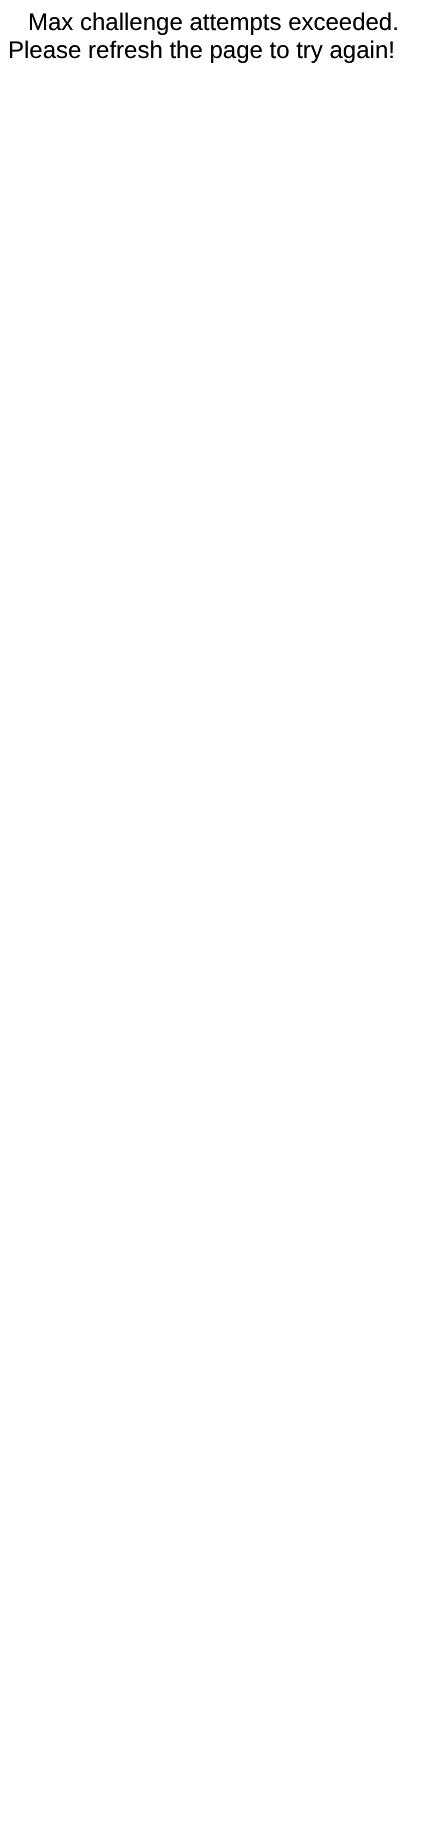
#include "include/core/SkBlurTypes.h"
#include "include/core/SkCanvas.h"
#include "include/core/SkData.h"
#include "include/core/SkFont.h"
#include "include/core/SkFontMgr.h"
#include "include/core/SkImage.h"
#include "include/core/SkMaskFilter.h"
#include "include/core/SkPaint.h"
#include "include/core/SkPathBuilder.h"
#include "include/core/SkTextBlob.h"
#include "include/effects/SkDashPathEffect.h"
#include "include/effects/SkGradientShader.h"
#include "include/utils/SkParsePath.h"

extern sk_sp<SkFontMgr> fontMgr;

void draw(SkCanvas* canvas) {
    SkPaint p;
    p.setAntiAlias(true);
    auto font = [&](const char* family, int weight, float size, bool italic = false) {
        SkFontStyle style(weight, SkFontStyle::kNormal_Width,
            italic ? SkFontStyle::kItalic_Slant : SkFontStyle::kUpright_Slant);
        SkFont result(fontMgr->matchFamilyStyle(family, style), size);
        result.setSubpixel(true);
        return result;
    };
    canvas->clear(0xFFFFFFFF);
    auto font1 = font("Liberation Sans", 400, 24);
    p.setColor(0xFF000000);
    canvas->drawString("Max challenge attempts exceeded.", 28, 30, font1, p);
    canvas->drawString("Please refresh the page to try again!", 8, 58, font1, p);
}
